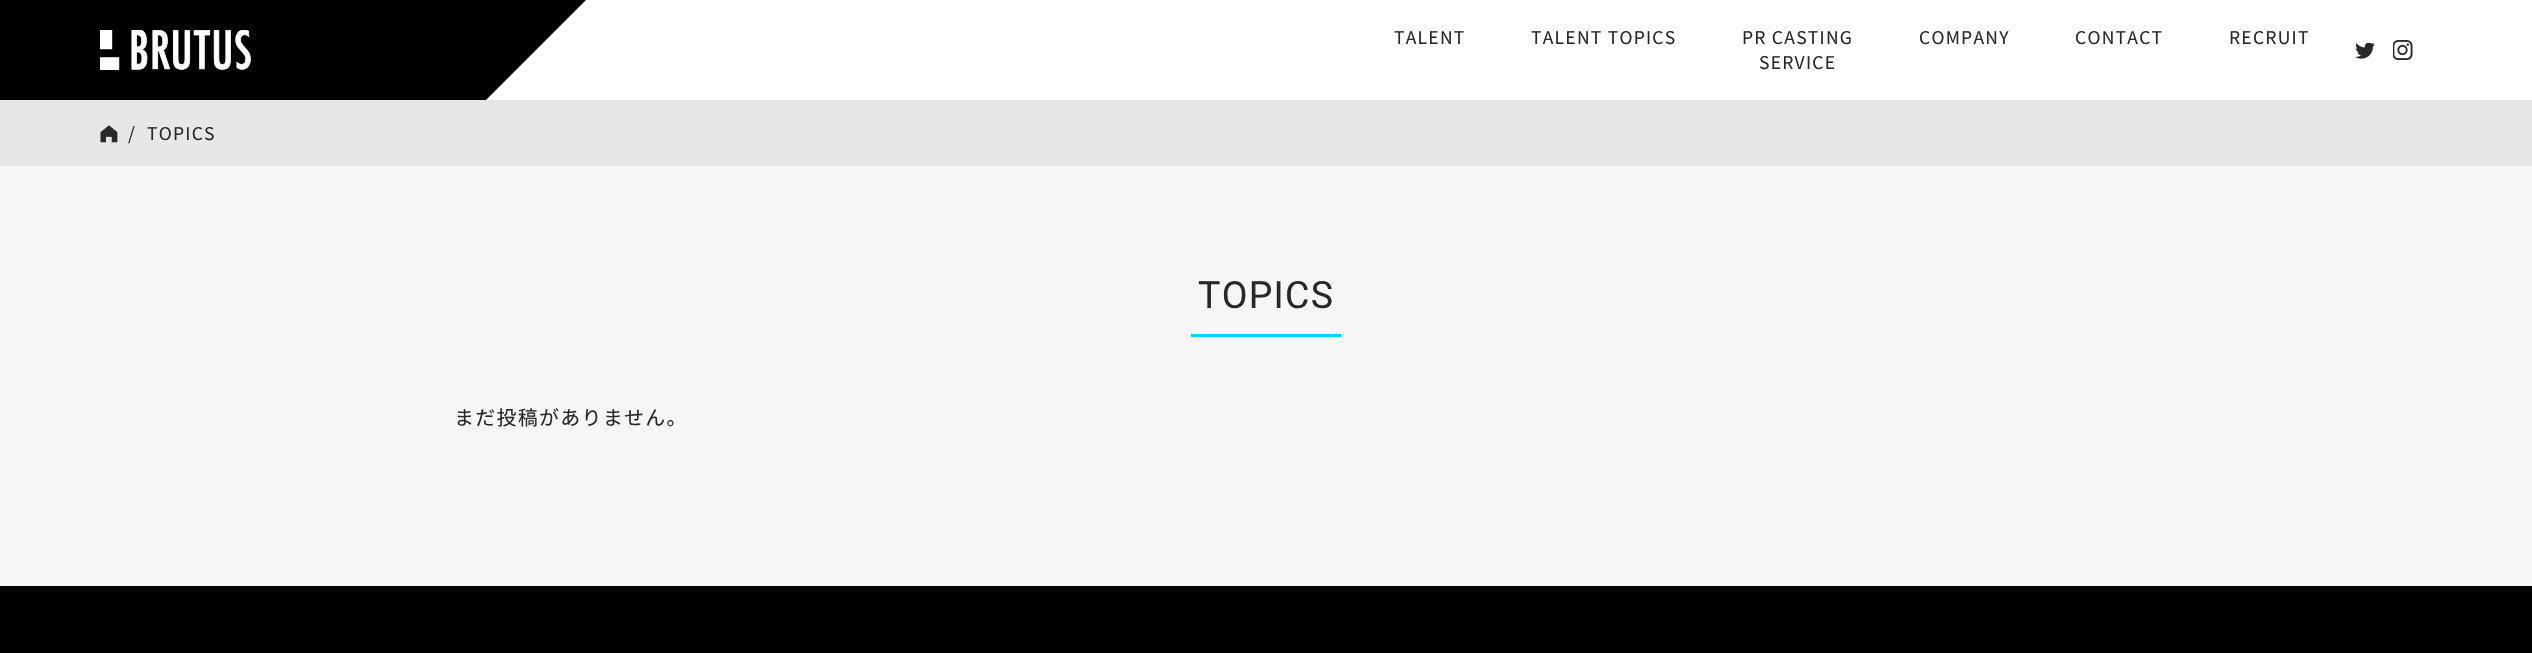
#include "include/core/SkBlurTypes.h"
#include "include/core/SkCanvas.h"
#include "include/core/SkData.h"
#include "include/core/SkFont.h"
#include "include/core/SkFontMgr.h"
#include "include/core/SkImage.h"
#include "include/core/SkMaskFilter.h"
#include "include/core/SkPaint.h"
#include "include/core/SkPathBuilder.h"
#include "include/core/SkTextBlob.h"
#include "include/effects/SkDashPathEffect.h"
#include "include/effects/SkGradientShader.h"
#include "include/utils/SkParsePath.h"

extern sk_sp<SkFontMgr> fontMgr;

void draw(SkCanvas* canvas) {
    SkPaint p;
    p.setAntiAlias(true);
    auto font = [&](const char* family, int weight, float size, bool italic = false) {
        SkFontStyle style(weight, SkFontStyle::kNormal_Width,
            italic ? SkFontStyle::kItalic_Slant : SkFontStyle::kUpright_Slant);
        SkFont result(fontMgr->matchFamilyStyle(family, style), size);
        result.setSubpixel(true);
        return result;
    };
    auto drawTracked = [&](const char* s, float x, float y, const SkFont& font, const SkPaint& ink, float letter, float word) {
        std::vector<SkGlyphID> glyphs(font.countText(s, strlen(s), SkTextEncoding::kUTF8));
        std::vector<float> xs(glyphs.size());
        font.textToGlyphs(s, strlen(s), SkTextEncoding::kUTF8, glyphs);
        font.getXPos(glyphs, xs, x);
        float extra = 0;
        for (size_t i = 0; i < glyphs.size(); i++) {
            xs[i] += extra;
            extra += letter + word * (glyphs[i] == font.unicharToGlyph(' '));
        }
        canvas->drawTextBlob(SkTextBlob::MakeFromPosHGlyphs(glyphs, xs, y, font), 0, 0, ink);
    };
    auto drawPhoto = [&](const char* path, float l, float t, float r, float b) {
        auto image = SkImages::DeferredFromEncodedData(SkData::MakeFromFileName(path));
        canvas->drawImageRect(image, SkRect::MakeLTRB(l, t, r, b), SkSamplingOptions());
    };
    canvas->clear(0xFFF6F6F6);
    p.setColor(0xFFFFFFFF);
    canvas->drawRect(SkRect::MakeLTRB(486, 0, 2532, 100), p);
    p.setColor(0xFF000000);
    canvas->drawRect(SkRect::MakeLTRB(0, 0, 486, 100), p);
    drawPhoto("media/1.png", 100, 30, 251, 70);
    canvas->drawPath(SkPathBuilder().moveTo(486, 0).lineTo(586, 0).lineTo(486, 100).close().detach(), p);
    auto font1 = font("Noto Sans CJK JP", 400, 17.5f);
    p.setColor(0xFF282828);
    {
        const struct { const char* s; float x, y; } items[] = {
            {"TALENT", 1394, 44},
            {"TALENT TOPICS", 1531, 44},
            {"PR CASTING", 1742, 44},
            {"SERVICE", 1759, 69},
            {"COMPANY", 1919, 44},
            {"CONTACT", 2075, 44},
            {"RECRUIT", 2229, 44},
        };
        for (auto [s, x, y] : items) {
            drawTracked(s, x, y, font1, p, 1.25f, 0);
        }
    }
    drawPhoto("media/2.png", 2355, 43, 2375, 59);
    drawPhoto("media/3.png", 2393, 40, 2413, 60);
    p.setColor(0xFFE7E7E7);
    canvas->drawRect(SkRect::MakeLTRB(0, 100, 2532, 166), p);
    drawPhoto("media/4.png", 100, 125, 118, 143);
    p.setColor(0xFF282828);
    drawTracked("/", 128, 140, font1, p, 1.25f, 0);
    drawTracked("TOPICS", 147, 140, font1, p, 1.25f, 0);
    auto font2 = font("Roboto", 400, 37.5f);
    drawTracked("TOPICS", 1198, 308, font2, p, 1.25f, 0);
    p.setColor(0xFF00D2FF);
    canvas->drawRect(SkRect::MakeLTRB(1191, 334, 1341, 337), p);
    auto font3 = font("Noto Sans CJK JP", 400, 20);
    p.setColor(0xFF282828);
    drawTracked("まだ投稿がありません。", 454, 425, font3, p, 1.25f, 0);
    p.setColor(0xFF000000);
    canvas->drawRect(SkRect::MakeLTRB(0, 586, 2532, 653), p);
}
